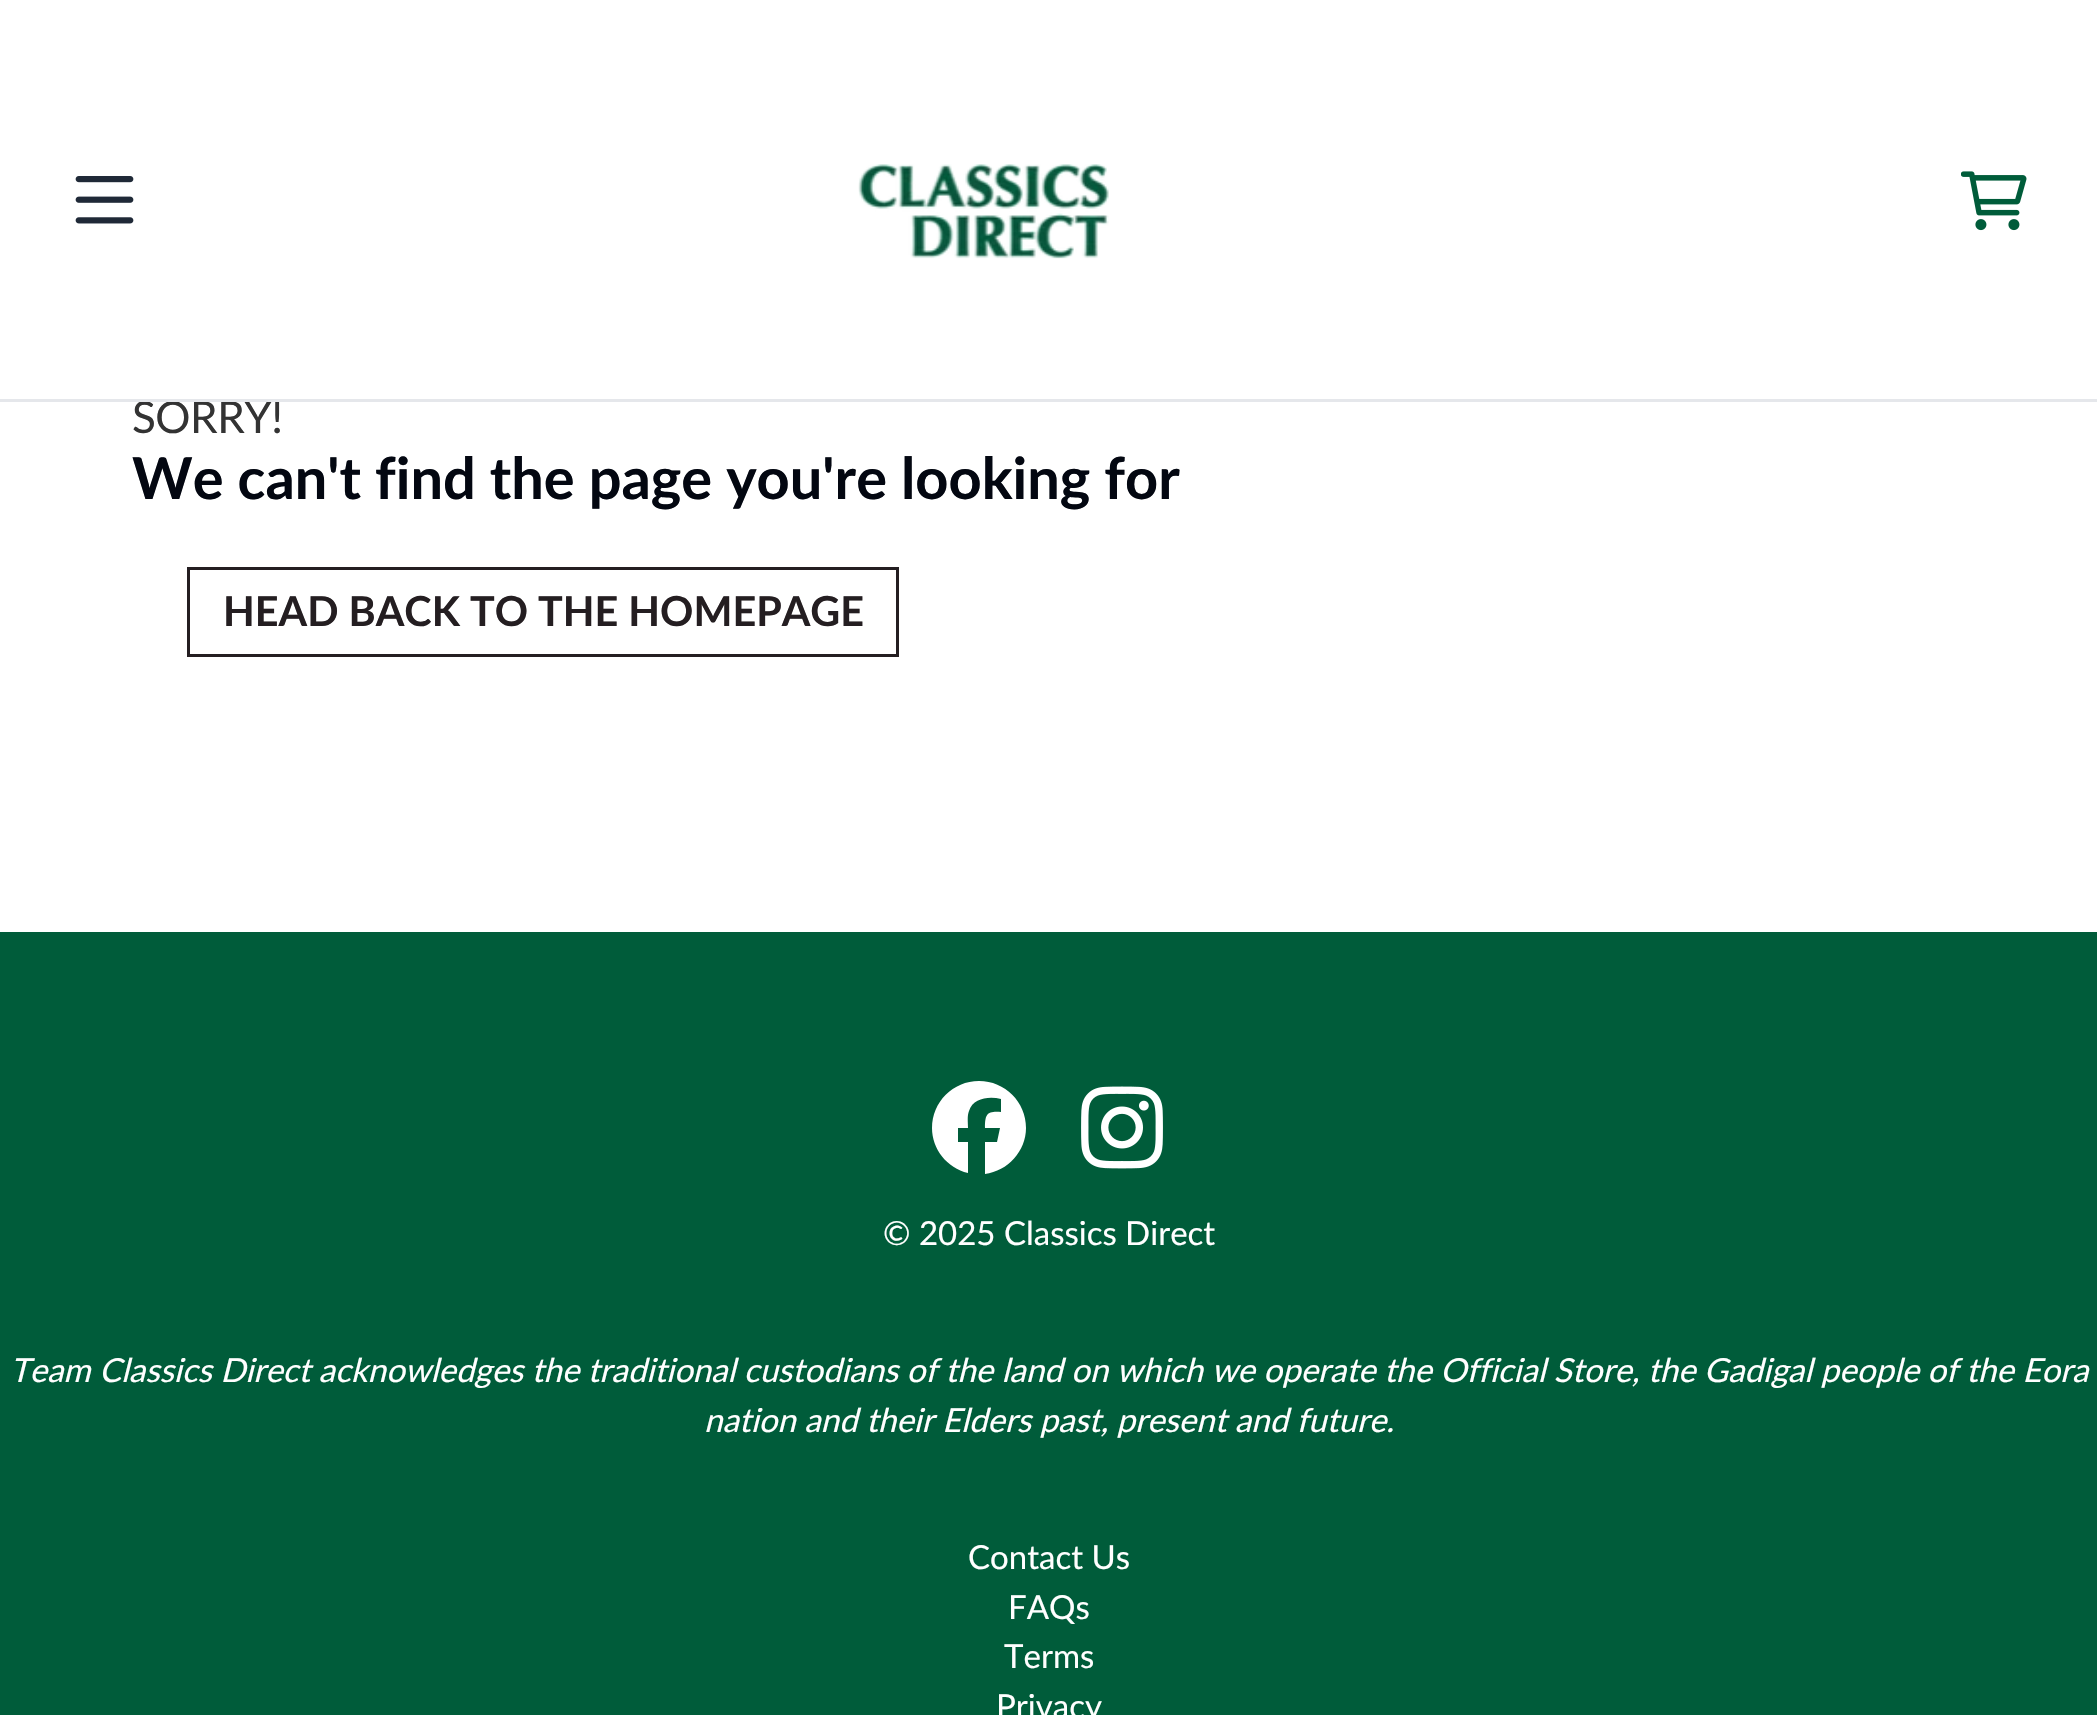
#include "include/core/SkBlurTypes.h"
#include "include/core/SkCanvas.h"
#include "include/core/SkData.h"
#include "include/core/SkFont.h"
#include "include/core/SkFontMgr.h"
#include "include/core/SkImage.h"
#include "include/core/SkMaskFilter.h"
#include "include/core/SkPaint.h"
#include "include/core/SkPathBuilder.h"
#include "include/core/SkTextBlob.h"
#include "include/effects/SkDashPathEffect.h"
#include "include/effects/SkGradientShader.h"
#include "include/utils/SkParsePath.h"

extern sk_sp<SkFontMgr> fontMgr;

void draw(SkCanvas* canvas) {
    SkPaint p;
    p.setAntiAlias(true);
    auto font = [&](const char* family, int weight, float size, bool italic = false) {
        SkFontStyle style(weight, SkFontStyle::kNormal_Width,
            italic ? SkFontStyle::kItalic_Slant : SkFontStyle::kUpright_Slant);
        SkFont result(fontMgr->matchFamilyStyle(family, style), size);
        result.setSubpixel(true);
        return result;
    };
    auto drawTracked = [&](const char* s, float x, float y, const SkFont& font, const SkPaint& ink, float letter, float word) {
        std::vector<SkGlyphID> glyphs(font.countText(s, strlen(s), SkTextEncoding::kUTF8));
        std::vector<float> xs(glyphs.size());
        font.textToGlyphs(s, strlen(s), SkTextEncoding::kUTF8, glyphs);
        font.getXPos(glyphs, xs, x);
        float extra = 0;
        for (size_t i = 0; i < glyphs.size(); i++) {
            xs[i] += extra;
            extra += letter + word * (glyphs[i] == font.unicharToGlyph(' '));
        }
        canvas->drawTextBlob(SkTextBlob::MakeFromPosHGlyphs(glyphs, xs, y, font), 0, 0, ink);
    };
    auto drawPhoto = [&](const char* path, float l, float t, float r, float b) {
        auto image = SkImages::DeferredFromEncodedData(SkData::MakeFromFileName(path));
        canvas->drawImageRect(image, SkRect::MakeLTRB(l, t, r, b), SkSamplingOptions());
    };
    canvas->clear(0xFFFFFFFF);
    auto font1 = font("Lato", 400, 44);
    p.setColor(0xFF333333);
    drawTracked("SORRY!", 132, 433, font1, p, -0.5f, 0);
    p.setColor(0xFFE5E7EB);
    canvas->drawRect(SkRect::MakeLTRB(0, 399, 2097, 402), p);
    drawPhoto("media/1.png", 75, 176, 134, 224);
    drawPhoto("media/2.png", 858, 164, 1109, 259);
    drawPhoto("media/3.png", 1961, 171, 2027, 231);
    auto font2 = font("Lato", 700, 57.75f);
    p.setColor(0xFF030711);
    canvas->drawString("We can't find the page you're looking for", 132, 499, font2, p);
    p.setStyle(SkPaint::kStroke_Style);
    p.setStrokeWidth(3);
    p.setColor(0xFF241E21);
    canvas->drawRect(SkRect::MakeLTRB(188.5f, 568.5f, 897.5f, 655.5f), p);
    auto font3 = font("Lato", 700, 41.25f);
    p.setStyle(SkPaint::kFill_Style);
    canvas->drawString("HEAD BACK TO THE HOMEPAGE", 223, 626, font3, p);
    p.setColor(0xFF005C3A);
    canvas->drawRect(SkRect::MakeLTRB(0, 932, 2097, 1715), p);
    p.setColor(0xFFFFFFFF);
    canvas->drawPath(SkPathBuilder().moveTo(979, 1081).cubicTo(953, 1081, 932, 1102, 932, 1128).cubicTo(932, 1149, 947, 1168, 968, 1173).lineTo(968, 1142).lineTo(958, 1142).lineTo(958, 1128).lineTo(968, 1128).cubicTo(968, 1122, 967, 1116, 969, 1111).cubicTo(973, 1098, 989, 1096, 1001, 1099).lineTo(1001, 1112).cubicTo(987, 1111, 985, 1114, 985, 1128).lineTo(1000, 1128).lineTo(997, 1142).lineTo(985, 1142).lineTo(985, 1174).cubicTo(1008, 1171, 1026, 1151, 1026, 1128).cubicTo(1026, 1102, 1005, 1081, 979, 1081).close().detach(), p);
    drawPhoto("media/4.png", 1081, 1086, 1163, 1169);
    auto font4 = font("Lato", 400, 33);
    canvas->drawString("© 2025 Classics Direct", 883, 1245, font4, p);
    auto font5 = font("Lato", 400, 33, true);
    canvas->drawString("Team Classics Direct acknowledges the traditional custodians of the land on which we operate the Official Store, the Gadigal people of the Eora", 10, 1382, font5, p);
    canvas->drawString("nation and their Elders past, present and future.", 704, 1432, font5, p);
    {
        const struct { const char* s; float x, y; } items[] = {
            {"Contact Us", 968, 1569},
            {"FAQs", 1008, 1619},
            {"Terms", 1004, 1668},
            {"Privacy", 996, 1718},
        };
        for (auto [s, x, y] : items) {
            canvas->drawString(s, x, y, font4, p);
        }
    }
}
